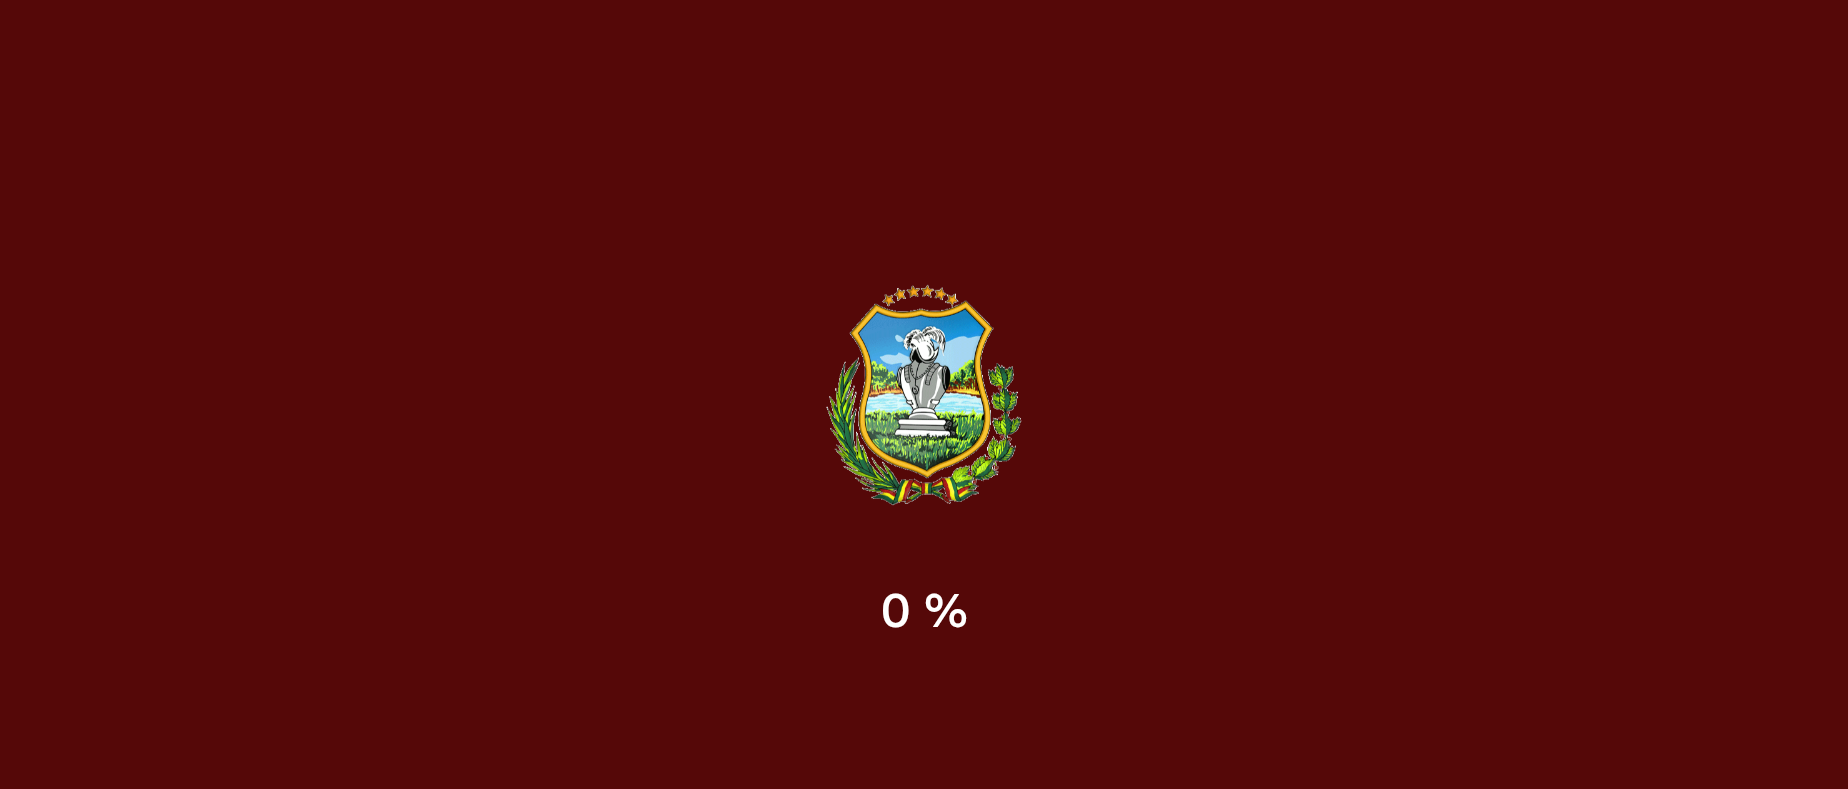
#include "include/core/SkBlurTypes.h"
#include "include/core/SkCanvas.h"
#include "include/core/SkData.h"
#include "include/core/SkFont.h"
#include "include/core/SkFontMgr.h"
#include "include/core/SkImage.h"
#include "include/core/SkMaskFilter.h"
#include "include/core/SkPaint.h"
#include "include/core/SkPathBuilder.h"
#include "include/core/SkTextBlob.h"
#include "include/effects/SkDashPathEffect.h"
#include "include/effects/SkGradientShader.h"
#include "include/utils/SkParsePath.h"

extern sk_sp<SkFontMgr> fontMgr;

void draw(SkCanvas* canvas) {
    SkPaint p;
    p.setAntiAlias(true);
    auto font = [&](const char* family, int weight, float size, bool italic = false) {
        SkFontStyle style(weight, SkFontStyle::kNormal_Width,
            italic ? SkFontStyle::kItalic_Slant : SkFontStyle::kUpright_Slant);
        SkFont result(fontMgr->matchFamilyStyle(family, style), size);
        result.setSubpixel(true);
        return result;
    };
    auto drawPhoto = [&](const char* path, float l, float t, float r, float b) {
        auto image = SkImages::DeferredFromEncodedData(SkData::MakeFromFileName(path));
        canvas->drawImageRect(image, SkRect::MakeLTRB(l, t, r, b), SkSamplingOptions());
    };
    canvas->clear(0xFF550808);
    drawPhoto("media/1.png", 826, 284, 1022, 506);
    auto font1 = font("Work Sans", 500, 50);
    p.setColor(0xFFFFFFFF);
    canvas->drawString("0", 880, 627, font1, p);
    canvas->drawString("%", 924, 627, font1, p);
}
